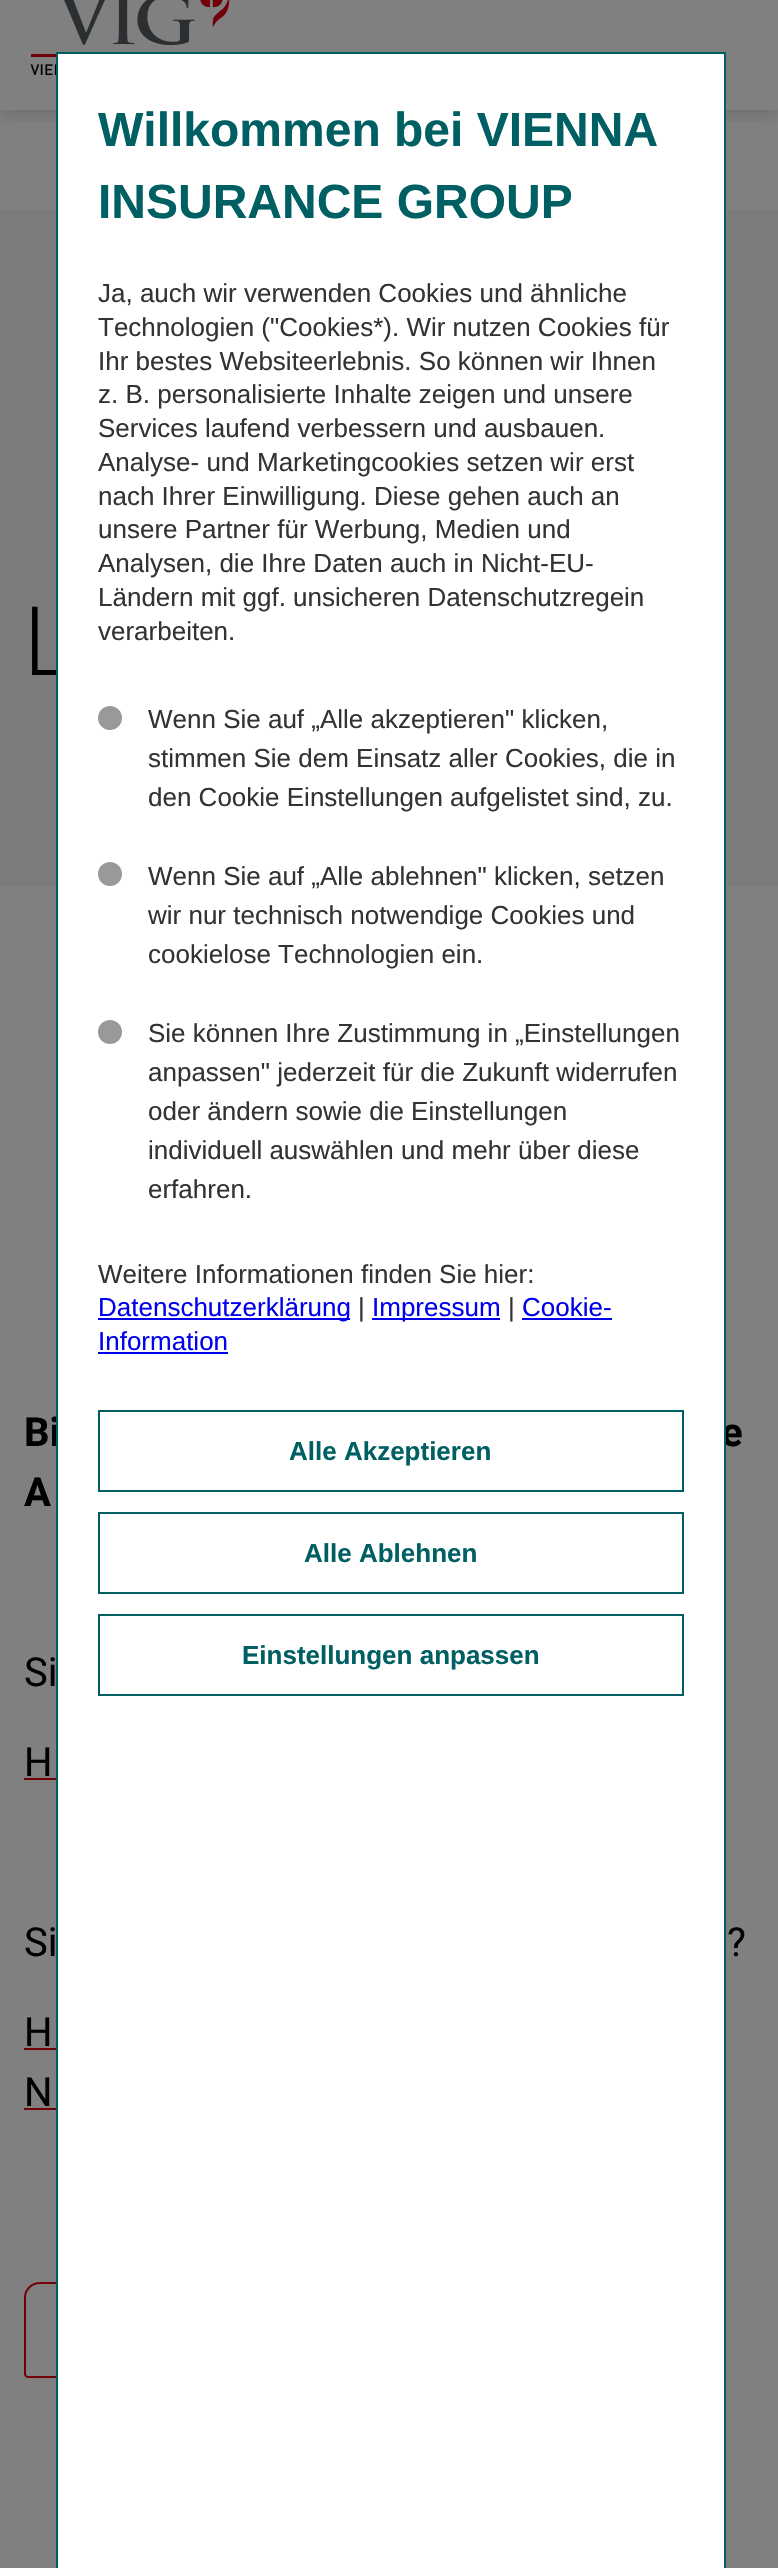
#include "include/core/SkBlurTypes.h"
#include "include/core/SkCanvas.h"
#include "include/core/SkData.h"
#include "include/core/SkFont.h"
#include "include/core/SkFontMgr.h"
#include "include/core/SkImage.h"
#include "include/core/SkMaskFilter.h"
#include "include/core/SkPaint.h"
#include "include/core/SkPathBuilder.h"
#include "include/core/SkTextBlob.h"
#include "include/effects/SkDashPathEffect.h"
#include "include/effects/SkGradientShader.h"
#include "include/utils/SkParsePath.h"

extern sk_sp<SkFontMgr> fontMgr;

void draw(SkCanvas* canvas) {
    SkPaint p;
    p.setAntiAlias(true);
    auto font = [&](const char* family, int weight, float size, bool italic = false) {
        SkFontStyle style(weight, SkFontStyle::kNormal_Width,
            italic ? SkFontStyle::kItalic_Slant : SkFontStyle::kUpright_Slant);
        SkFont result(fontMgr->matchFamilyStyle(family, style), size);
        result.setSubpixel(true);
        return result;
    };
    auto drawTracked = [&](const char* s, float x, float y, const SkFont& font, const SkPaint& ink, float letter, float word) {
        std::vector<SkGlyphID> glyphs(font.countText(s, strlen(s), SkTextEncoding::kUTF8));
        std::vector<float> xs(glyphs.size());
        font.textToGlyphs(s, strlen(s), SkTextEncoding::kUTF8, glyphs);
        font.getXPos(glyphs, xs, x);
        float extra = 0;
        for (size_t i = 0; i < glyphs.size(); i++) {
            xs[i] += extra;
            extra += letter + word * (glyphs[i] == font.unicharToGlyph(' '));
        }
        canvas->drawTextBlob(SkTextBlob::MakeFromPosHGlyphs(glyphs, xs, y, font), 0, 0, ink);
    };
    auto drawPhoto = [&](const char* path, float l, float t, float r, float b) {
        auto image = SkImages::DeferredFromEncodedData(SkData::MakeFromFileName(path));
        canvas->drawImageRect(image, SkRect::MakeLTRB(l, t, r, b), SkSamplingOptions());
    };
    canvas->clear(0xFF808080);
    canvas->save();
    canvas->clipRect(SkRect::MakeLTRB(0, 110, 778, 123));
    p.setColor(0x26000000);
    p.setMaskFilter(SkMaskFilter::MakeBlur(kNormal_SkBlurStyle, 8));
    canvas->drawRect(SkRect::MakeLTRB(0, -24, 778, 114), p);
    p.setMaskFilter(nullptr);
    canvas->restore();
    drawPhoto("media/1.png", 30, 0, 230, 75);
    p.setColor(0xFF7C7C7C);
    canvas->drawRect(SkRect::MakeLTRB(0, 210, 778, 886), p);
    auto font1 = font("Roboto Condensed", 300, 96);
    p.setColor(0xFF000000);
    drawTracked("L", 24, 675, font1, p, 2, 0);
    auto font2 = font("Roboto", 700, 40);
    canvas->drawString("Bi", 24, 1446, font2, p);
    canvas->drawString("e", 721, 1446, font2, p);
    p.setStyle(SkPaint::kStroke_Style);
    p.setStrokeWidth(2);
    p.setColor(0xFF720008);
    canvas->drawPath(SkPathBuilder().moveTo(40, 2283).lineTo(500, 2283).cubicTo(501.5f, 2283, 503, 2284.5f, 503, 2286).lineTo(503, 2362).cubicTo(503, 2370.5f, 496.5f, 2377, 488, 2377).lineTo(28, 2377).cubicTo(26.5f, 2377, 25, 2375.5f, 25, 2374).lineTo(25, 2298).cubicTo(25, 2289.5f, 31.5f, 2283, 40, 2283).close().detach(), p);
    p.setStyle(SkPaint::kFill_Style);
    p.setColor(0xFFFFFFFF);
    canvas->drawRect(SkRect::MakeLTRB(57, 53, 725, 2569), p);
    p.setStyle(SkPaint::kStroke_Style);
    p.setColor(0xFF005F62);
    canvas->drawRect(SkRect::MakeLTRB(57, 53, 725, 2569), p);
    auto font3 = font("Liberation Sans", 700, 48);
    p.setStyle(SkPaint::kFill_Style);
    canvas->drawString("Willkommen bei VIENNA", 98, 146, font3, p);
    canvas->drawString("INSURANCE GROUP", 98, 218, font3, p);
    auto font4 = font("Liberation Sans", 400, 26);
    p.setColor(0xFF333333);
    {
        const struct { const char* s; float x, y; } items[] = {
            {"Ja, auch wir verwenden Cookies und ähnliche", 98, 302},
            {"Technologien (\"Cookies*). Wir nutzen Cookies für", 98, 336},
            {"Ihr bestes Websiteerlebnis. So können wir Ihnen", 98, 370},
            {"z. B. personalisierte Inhalte zeigen und unsere", 98, 403},
            {"Services laufend verbessern und ausbauen.", 98, 437},
            {"Analyse- und Marketingcookies setzen wir erst", 98, 471},
            {"nach Ihrer Einwilligung. Diese gehen auch an", 98, 505},
            {"unsere Partner für Werbung, Medien und", 98, 538},
            {"Analysen, die Ihre Daten auch in Nicht-EU-", 98, 572},
            {"Ländern mit ggf. unsicheren Datenschutzregein", 98, 606},
            {"verarbeiten.", 98, 640},
        };
        for (auto [s, x, y] : items) {
            canvas->drawString(s, x, y, font4, p);
        }
    }
    p.setColor(0xFF999999);
    canvas->drawCircle(110, 718, 12, p);
    p.setColor(0xFF333333);
    {
        const struct { const char* s; float x, y; } items[] = {
            {"Wenn Sie auf „Alle akzeptieren\" klicken,", 148, 728},
            {"stimmen Sie dem Einsatz aller Cookies, die in", 148, 767},
            {"den Cookie Einstellungen aufgelistet sind, zu.", 148, 806},
        };
        for (auto [s, x, y] : items) {
            canvas->drawString(s, x, y, font4, p);
        }
    }
    p.setColor(0xFF999999);
    canvas->drawCircle(110, 874, 12, p);
    p.setColor(0xFF333333);
    {
        const struct { const char* s; float x, y; } items[] = {
            {"Wenn Sie auf „Alle ablehnen\" klicken, setzen", 148, 885},
            {"wir nur technisch notwendige Cookies und", 148, 924},
            {"cookielose Technologien ein.", 148, 963},
        };
        for (auto [s, x, y] : items) {
            canvas->drawString(s, x, y, font4, p);
        }
    }
    p.setColor(0xFF999999);
    canvas->drawCircle(110, 1032, 12, p);
    p.setColor(0xFF333333);
    {
        const struct { const char* s; float x, y; } items[] = {
            {"Sie können Ihre Zustimmung in „Einstellungen", 148, 1042},
            {"anpassen\" jederzeit für die Zukunft widerrufen", 148, 1081},
            {"oder ändern sowie die Einstellungen", 148, 1120},
            {"individuell auswählen und mehr über diese", 148, 1159},
            {"erfahren.", 148, 1198},
            {"Weitere Informationen finden Sie hier:", 98, 1283},
        };
        for (auto [s, x, y] : items) {
            canvas->drawString(s, x, y, font4, p);
        }
    }
    p.setColor(0xFF0000EE);
    canvas->drawRect(SkRect::MakeLTRB(98, 1318, 350, 1320), p);
    canvas->drawString("Datenschutzerklärung", 98, 1316, font4, p);
    p.setColor(0xFF333333);
    canvas->drawString("|", 358, 1316, font4, p);
    p.setColor(0xFF0000EE);
    canvas->drawRect(SkRect::MakeLTRB(372, 1318, 500, 1320), p);
    canvas->drawString("Impressum", 372, 1316, font4, p);
    p.setColor(0xFF333333);
    canvas->drawString("|", 508, 1316, font4, p);
    p.setColor(0xFF0000EE);
    canvas->drawString("Cookie-", 522, 1316, font4, p);
    canvas->drawRect(SkRect::MakeLTRB(522, 1318, 612, 1320), p);
    canvas->drawString("Information", 98, 1350, font4, p);
    canvas->drawRect(SkRect::MakeLTRB(98, 1352, 228, 1354), p);
    p.setStyle(SkPaint::kStroke_Style);
    p.setColor(0xFF005F62);
    canvas->drawRect(SkRect::MakeLTRB(99, 1411, 683, 1491), p);
    auto font5 = font("Liberation Sans", 700, 26);
    p.setStyle(SkPaint::kFill_Style);
    canvas->drawString("Alle Akzeptieren", 289, 1460, font5, p);
    p.setStyle(SkPaint::kStroke_Style);
    canvas->drawRect(SkRect::MakeLTRB(99, 1513, 683, 1593), p);
    p.setStyle(SkPaint::kFill_Style);
    canvas->drawString("Alle Ablehnen", 304, 1562, font5, p);
    p.setStyle(SkPaint::kStroke_Style);
    canvas->drawRect(SkRect::MakeLTRB(99, 1615, 683, 1695), p);
    p.setStyle(SkPaint::kFill_Style);
    canvas->drawString("Einstellungen anpassen", 242, 1664, font5, p);
    p.setColor(0xFF000000);
    canvas->drawString("A", 24, 1506, font2, p);
    auto font6 = font("Roboto", 400, 40);
    canvas->drawString("Si", 24, 1686, font6, p);
    canvas->drawString("H", 24, 1776, font6, p);
    p.setColor(0xFF720008);
    canvas->drawRect(SkRect::MakeLTRB(24, 1778, 56, 1780), p);
    p.setColor(0xFF000000);
    {
        const struct { const char* s; float x, y; } items[] = {
            {"Si", 24, 1956},
            {"?", 727, 1956},
            {"H", 24, 2046},
        };
        for (auto [s, x, y] : items) {
            canvas->drawString(s, x, y, font6, p);
        }
    }
    p.setColor(0xFF720008);
    canvas->drawRect(SkRect::MakeLTRB(24, 2048, 56, 2050), p);
    p.setColor(0xFF000000);
    canvas->drawString("N", 24, 2106, font6, p);
    p.setColor(0xFF720008);
    canvas->drawRect(SkRect::MakeLTRB(24, 2108, 56, 2110), p);
}
